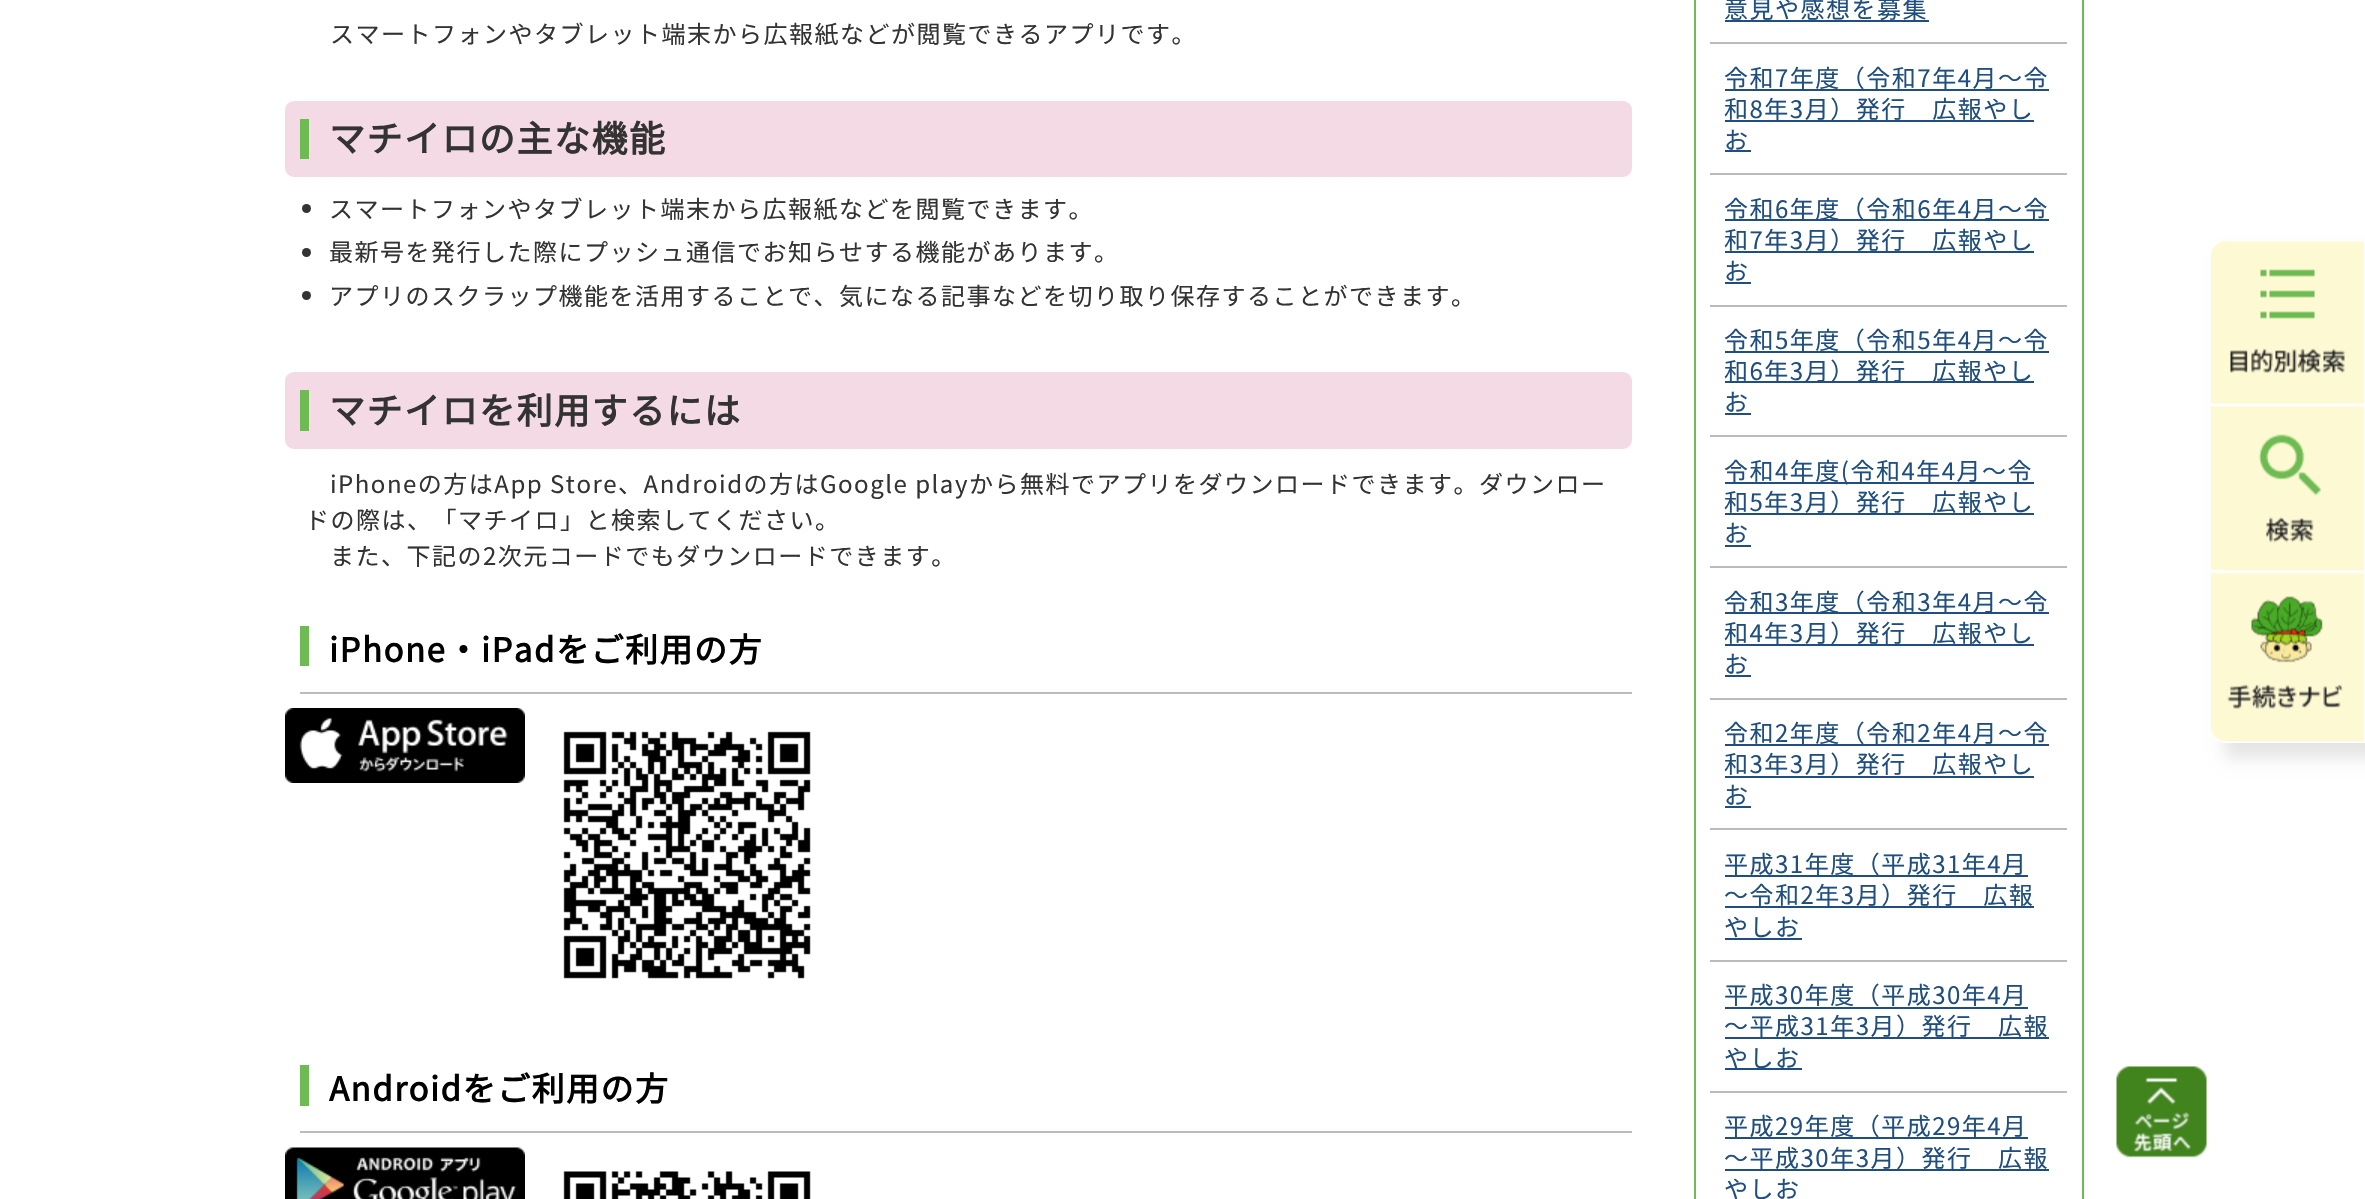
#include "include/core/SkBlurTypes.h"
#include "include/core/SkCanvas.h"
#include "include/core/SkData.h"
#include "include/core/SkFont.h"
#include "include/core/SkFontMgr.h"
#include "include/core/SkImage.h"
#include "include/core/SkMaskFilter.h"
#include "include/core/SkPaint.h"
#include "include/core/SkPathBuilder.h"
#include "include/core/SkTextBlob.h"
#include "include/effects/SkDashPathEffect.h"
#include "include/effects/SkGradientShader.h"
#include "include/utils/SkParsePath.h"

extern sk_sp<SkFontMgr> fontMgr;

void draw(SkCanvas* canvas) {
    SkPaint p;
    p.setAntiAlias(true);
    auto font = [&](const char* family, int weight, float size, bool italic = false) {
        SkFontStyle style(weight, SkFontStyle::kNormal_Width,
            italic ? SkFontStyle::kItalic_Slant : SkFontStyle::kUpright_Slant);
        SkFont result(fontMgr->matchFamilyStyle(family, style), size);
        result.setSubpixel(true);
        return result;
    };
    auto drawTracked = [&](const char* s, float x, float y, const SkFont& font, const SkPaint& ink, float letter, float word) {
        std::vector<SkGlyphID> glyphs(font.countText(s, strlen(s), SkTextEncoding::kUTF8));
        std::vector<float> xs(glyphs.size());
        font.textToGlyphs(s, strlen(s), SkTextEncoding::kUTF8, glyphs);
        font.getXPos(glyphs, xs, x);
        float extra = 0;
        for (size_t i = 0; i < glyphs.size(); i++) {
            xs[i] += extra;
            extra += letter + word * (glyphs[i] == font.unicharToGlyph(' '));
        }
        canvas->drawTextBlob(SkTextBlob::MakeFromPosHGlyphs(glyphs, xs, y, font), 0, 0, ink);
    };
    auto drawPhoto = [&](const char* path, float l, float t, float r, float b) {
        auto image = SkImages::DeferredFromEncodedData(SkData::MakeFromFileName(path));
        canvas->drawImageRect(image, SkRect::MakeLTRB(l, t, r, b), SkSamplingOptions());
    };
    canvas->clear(0xFFFFFFFF);
    auto font1 = font("Noto Sans JP", 100, 24);
    p.setColor(0xFF333333);
    drawTracked("スマートフォンやタブレット端末から広報紙などが閲覧できるアプリです。", 330, 43, font1, p, 1.5f, 0);
    p.setColor(0xFFF4DAE4);
    canvas->drawRoundRect(SkRect::MakeLTRB(285, 101, 1632, 177), 9, 9, p);
    p.setColor(0xFF6DBB52);
    canvas->drawRect(SkRect::MakeLTRB(300, 119, 309, 159), p);
    auto font2 = font("Noto Sans JP", 700, 36);
    p.setColor(0xFF333333);
    drawTracked("マチイロの主な機能", 329, 152, font2, p, 1.5f, 0);
    canvas->drawCircle(306.5f, 208.5f, 4.5f, p);
    drawTracked("スマートフォンやタブレット端末から広報紙などを閲覧できます。", 329, 218, font1, p, 1.5f, 0);
    canvas->drawCircle(306.5f, 252.5f, 4.5f, p);
    drawTracked("最新号を発行した際にプッシュ通信でお知らせする機能があります。", 329, 261, font1, p, 1.5f, 0);
    canvas->drawCircle(306.5f, 295.5f, 4.5f, p);
    drawTracked("アプリのスクラップ機能を活用することで、気になる記事などを切り取り保存することができます。", 329, 305, font1, p, 1.5f, 0);
    p.setColor(0xFFF4DAE4);
    canvas->drawRoundRect(SkRect::MakeLTRB(285, 372, 1632, 449), 9, 9, p);
    p.setColor(0xFF6DBB52);
    canvas->drawRect(SkRect::MakeLTRB(300, 390, 309, 431), p);
    p.setColor(0xFF333333);
    drawTracked("マチイロを利用するには", 329, 424, font2, p, 1.5f, 0);
    {
        const struct { const char* s; float x, y; } items[] = {
            {"iPhoneの方はApp Store、Androidの方はGoogle playから無料でアプリをダウンロードできます。ダウンロー", 330, 493},
            {"ドの際は、「マチイロ」と検索してください。", 305, 529},
            {"また、下記の2次元コードでもダウンロードできます。", 330, 565},
        };
        for (auto [s, x, y] : items) {
            drawTracked(s, x, y, font1, p, 1.5f, 0);
        }
    }
    p.setColor(0xFFBBBBBB);
    canvas->drawRect(SkRect::MakeLTRB(300, 692, 1632, 694), p);
    p.setColor(0xFF6DBB52);
    canvas->drawRect(SkRect::MakeLTRB(300, 626, 309, 666), p);
    auto font3 = font("Noto Sans JP", 700, 33);
    p.setColor(0xFF000000);
    drawTracked("iPhone・iPadをご利用の方", 329, 662, font3, p, 1.5f, 0);
    drawPhoto("media/1.png", 285, 708, 525, 783);
    drawPhoto("media/2.png", 563, 731, 811, 979);
    p.setColor(0xFFBBBBBB);
    canvas->drawRect(SkRect::MakeLTRB(300, 1131, 1632, 1133), p);
    p.setColor(0xFF6DBB52);
    canvas->drawRect(SkRect::MakeLTRB(300, 1065, 309, 1106), p);
    p.setColor(0xFF000000);
    drawTracked("Androidをご利用の方", 329, 1101, font3, p, 1.5f, 0);
    drawPhoto("media/3.png", 285, 1147, 525, 1199);
    drawPhoto("media/4.png", 563, 1171, 811, 1199);
    p.setStyle(SkPaint::kStroke_Style);
    p.setStrokeWidth(2);
    p.setColor(0xFF6DBB52);
    canvas->drawRect(SkRect::MakeLTRB(1695, -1, 2083, 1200), p);
    p.setStyle(SkPaint::kFill_Style);
    p.setColor(0xFFBBBBBB);
    canvas->drawRect(SkRect::MakeLTRB(1710, 42, 2067, 44), p);
    p.setColor(0xFF1F4E7F);
    drawTracked("意見や感想を募集", 1724, 18, font1, p, 1.5f, 0);
    {
        const struct { float l, t, r, b; SkColor color; } items[] = {
            {1725, 20, 1929, 22, 0xFF1F4E7F},
            {1710, 173, 2067, 175, 0xFFBBBBBB},
            {1725, 89, 2049, 91, 0xFF1F4E7F},
        };
        for (auto [l, t, r, b, color] : items) {
            p.setColor(color);
            canvas->drawRect(SkRect::MakeLTRB(l, t, r, b), p);
        }
    }
    drawTracked("令和7年度（令和7年4月～令", 1724, 87, font1, p, 1.5f, 0);
    canvas->drawRect(SkRect::MakeLTRB(1725, 120, 2034, 122), p);
    drawTracked("和8年3月）発行　広報やし", 1724, 118, font1, p, 1.5f, 0);
    drawTracked("お", 1724, 149, font1, p, 1.5f, 0);
    {
        const struct { float l, t, r, b; SkColor color; } items[] = {
            {1725, 150, 1751, 152, 0xFF1F4E7F},
            {1710, 305, 2067, 307, 0xFFBBBBBB},
            {1725, 219, 2049, 221, 0xFF1F4E7F},
        };
        for (auto [l, t, r, b, color] : items) {
            p.setColor(color);
            canvas->drawRect(SkRect::MakeLTRB(l, t, r, b), p);
        }
    }
    drawTracked("令和6年度（令和6年4月～令", 1724, 218, font1, p, 1.5f, 0);
    canvas->drawRect(SkRect::MakeLTRB(1725, 251, 2034, 253), p);
    drawTracked("和7年3月）発行　広報やし", 1724, 249, font1, p, 1.5f, 0);
    drawTracked("お", 1724, 280, font1, p, 1.5f, 0);
    {
        const struct { float l, t, r, b; SkColor color; } items[] = {
            {1725, 282, 1751, 284, 0xFF1F4E7F},
            {1710, 435, 2067, 437, 0xFFBBBBBB},
            {1725, 351, 2049, 353, 0xFF1F4E7F},
        };
        for (auto [l, t, r, b, color] : items) {
            p.setColor(color);
            canvas->drawRect(SkRect::MakeLTRB(l, t, r, b), p);
        }
    }
    drawTracked("令和5年度（令和5年4月～令", 1724, 349, font1, p, 1.5f, 0);
    canvas->drawRect(SkRect::MakeLTRB(1725, 381, 2034, 383), p);
    drawTracked("和6年3月）発行　広報やし", 1724, 380, font1, p, 1.5f, 0);
    drawTracked("お", 1724, 411, font1, p, 1.5f, 0);
    {
        const struct { float l, t, r, b; SkColor color; } items[] = {
            {1725, 413, 1751, 415, 0xFF1F4E7F},
            {1710, 566, 2067, 568, 0xFFBBBBBB},
            {1725, 482, 2034, 484, 0xFF1F4E7F},
        };
        for (auto [l, t, r, b, color] : items) {
            p.setColor(color);
            canvas->drawRect(SkRect::MakeLTRB(l, t, r, b), p);
        }
    }
    drawTracked("令和4年度(令和4年4月～令", 1724, 480, font1, p, 1.5f, 0);
    canvas->drawRect(SkRect::MakeLTRB(1725, 513, 2034, 515), p);
    drawTracked("和5年3月）発行　広報やし", 1724, 511, font1, p, 1.5f, 0);
    drawTracked("お", 1724, 542, font1, p, 1.5f, 0);
    {
        const struct { float l, t, r, b; SkColor color; } items[] = {
            {1725, 545, 1751, 547, 0xFF1F4E7F},
            {1710, 698, 2067, 700, 0xFFBBBBBB},
            {1725, 612, 2049, 614, 0xFF1F4E7F},
        };
        for (auto [l, t, r, b, color] : items) {
            p.setColor(color);
            canvas->drawRect(SkRect::MakeLTRB(l, t, r, b), p);
        }
    }
    drawTracked("令和3年度（令和3年4月～令", 1724, 611, font1, p, 1.5f, 0);
    canvas->drawRect(SkRect::MakeLTRB(1725, 644, 2034, 646), p);
    drawTracked("和4年3月）発行　広報やし", 1724, 642, font1, p, 1.5f, 0);
    drawTracked("お", 1724, 673, font1, p, 1.5f, 0);
    {
        const struct { float l, t, r, b; SkColor color; } items[] = {
            {1725, 675, 1751, 677, 0xFF1F4E7F},
            {1710, 828, 2067, 830, 0xFFBBBBBB},
            {1725, 744, 2049, 746, 0xFF1F4E7F},
        };
        for (auto [l, t, r, b, color] : items) {
            p.setColor(color);
            canvas->drawRect(SkRect::MakeLTRB(l, t, r, b), p);
        }
    }
    drawTracked("令和2年度（令和2年4月～令", 1724, 742, font1, p, 1.5f, 0);
    drawTracked("和3年3月）発行　広報やし", 1724, 773, font1, p, 1.5f, 0);
    canvas->drawRect(SkRect::MakeLTRB(1725, 776, 2034, 778), p);
    drawTracked("お", 1724, 804, font1, p, 1.5f, 0);
    {
        const struct { float l, t, r, b; SkColor color; } items[] = {
            {1725, 806, 1751, 808, 0xFF1F4E7F},
            {1710, 960, 2067, 962, 0xFFBBBBBB},
            {1725, 875, 2028, 877, 0xFF1F4E7F},
        };
        for (auto [l, t, r, b, color] : items) {
            p.setColor(color);
            canvas->drawRect(SkRect::MakeLTRB(l, t, r, b), p);
        }
    }
    drawTracked("平成31年度（平成31年4月", 1724, 873, font1, p, 1.5f, 0);
    canvas->drawRect(SkRect::MakeLTRB(1725, 906, 2034, 908), p);
    drawTracked("～令和2年3月）発行　広報", 1724, 904, font1, p, 1.5f, 0);
    drawTracked("やしお", 1724, 936, font1, p, 1.5f, 0);
    canvas->drawRect(SkRect::MakeLTRB(1725, 938, 1802, 940), p);
    p.setColor(0xFFBBBBBB);
    canvas->drawRect(SkRect::MakeLTRB(1710, 1091, 2067, 1093), p);
    p.setColor(0xFF1F4E7F);
    drawTracked("平成30年度（平成30年4月", 1724, 1004, font1, p, 1.5f, 0);
    canvas->drawRect(SkRect::MakeLTRB(1725, 1007, 2028, 1009), p);
    canvas->drawRect(SkRect::MakeLTRB(1725, 1037, 2049, 1039), p);
    drawTracked("～平成31年3月）発行　広報", 1724, 1035, font1, p, 1.5f, 0);
    canvas->drawRect(SkRect::MakeLTRB(1725, 1068, 1802, 1070), p);
    drawTracked("やしお", 1724, 1067, font1, p, 1.5f, 0);
    canvas->drawRect(SkRect::MakeLTRB(1725, 1137, 2028, 1139), p);
    drawTracked("平成29年度（平成29年4月", 1724, 1135, font1, p, 1.5f, 0);
    canvas->drawRect(SkRect::MakeLTRB(1725, 1169, 2049, 1171), p);
    drawTracked("～平成30年3月）発行　広報", 1724, 1167, font1, p, 1.5f, 0);
    drawTracked("やしお", 1724, 1198, font1, p, 1.5f, 0);
    p.setColor(0x1A000000);
    p.setMaskFilter(SkMaskFilter::MakeBlur(kNormal_SkBlurStyle, 7.5f));
    canvas->drawRect(SkRect::MakeLTRB(2225, 255, 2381, 758), p);
    p.setMaskFilter(nullptr);
    p.setStyle(SkPaint::kStroke_Style);
    p.setColor(0xFFFFFFFF);
    canvas->drawPath(SkPathBuilder().moveTo(2225, 241).lineTo(2365, 241).lineTo(2365, 404).lineTo(2211, 404).lineTo(2211, 255).cubicTo(2211, 247.5f, 2217.5f, 241, 2225, 241).close().detach(), p);
    drawPhoto("media/5.png", 2211, 241, 2364, 404);
    canvas->drawRect(SkRect::MakeLTRB(2211, 406, 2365, 571), p);
    drawPhoto("media/6.png", 2211, 406, 2364, 571);
    canvas->drawPath(SkPathBuilder().moveTo(2211, 573).lineTo(2365, 573).lineTo(2365, 742).lineTo(2225, 742).cubicTo(2217.5f, 742, 2211, 735.5f, 2211, 728).close().detach(), p);
    drawPhoto("media/7.png", 2211, 572, 2364, 742);
    drawPhoto("media/8.png", 2116, 1066, 2207, 1158);
}
